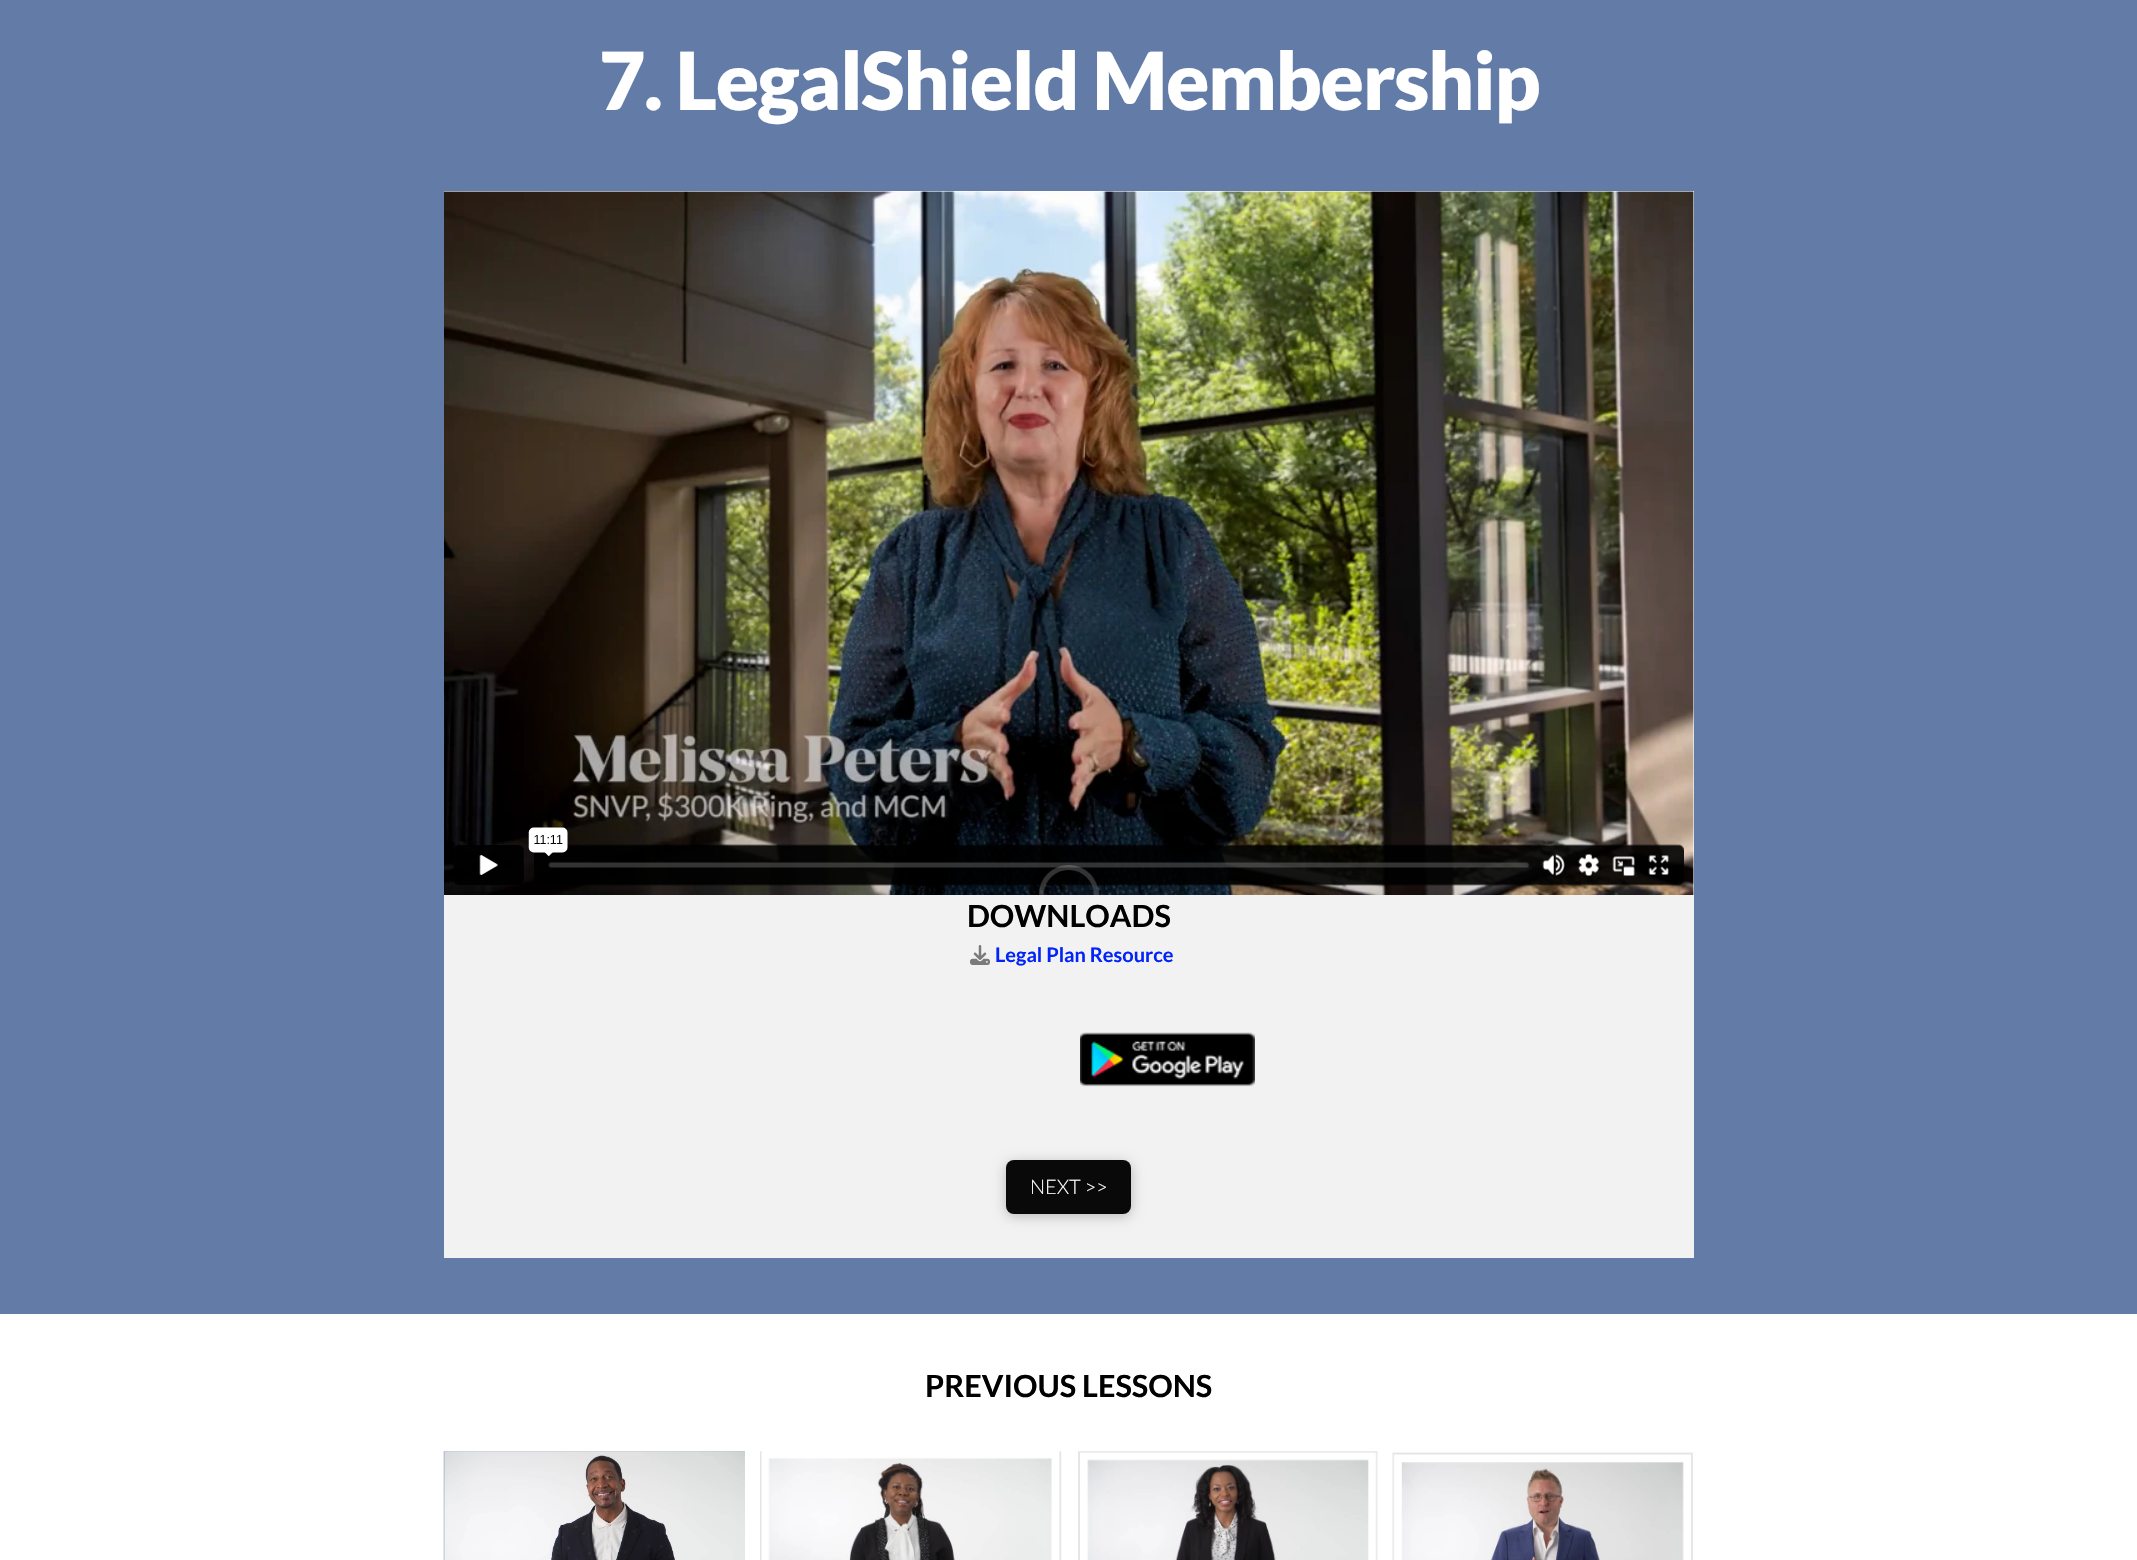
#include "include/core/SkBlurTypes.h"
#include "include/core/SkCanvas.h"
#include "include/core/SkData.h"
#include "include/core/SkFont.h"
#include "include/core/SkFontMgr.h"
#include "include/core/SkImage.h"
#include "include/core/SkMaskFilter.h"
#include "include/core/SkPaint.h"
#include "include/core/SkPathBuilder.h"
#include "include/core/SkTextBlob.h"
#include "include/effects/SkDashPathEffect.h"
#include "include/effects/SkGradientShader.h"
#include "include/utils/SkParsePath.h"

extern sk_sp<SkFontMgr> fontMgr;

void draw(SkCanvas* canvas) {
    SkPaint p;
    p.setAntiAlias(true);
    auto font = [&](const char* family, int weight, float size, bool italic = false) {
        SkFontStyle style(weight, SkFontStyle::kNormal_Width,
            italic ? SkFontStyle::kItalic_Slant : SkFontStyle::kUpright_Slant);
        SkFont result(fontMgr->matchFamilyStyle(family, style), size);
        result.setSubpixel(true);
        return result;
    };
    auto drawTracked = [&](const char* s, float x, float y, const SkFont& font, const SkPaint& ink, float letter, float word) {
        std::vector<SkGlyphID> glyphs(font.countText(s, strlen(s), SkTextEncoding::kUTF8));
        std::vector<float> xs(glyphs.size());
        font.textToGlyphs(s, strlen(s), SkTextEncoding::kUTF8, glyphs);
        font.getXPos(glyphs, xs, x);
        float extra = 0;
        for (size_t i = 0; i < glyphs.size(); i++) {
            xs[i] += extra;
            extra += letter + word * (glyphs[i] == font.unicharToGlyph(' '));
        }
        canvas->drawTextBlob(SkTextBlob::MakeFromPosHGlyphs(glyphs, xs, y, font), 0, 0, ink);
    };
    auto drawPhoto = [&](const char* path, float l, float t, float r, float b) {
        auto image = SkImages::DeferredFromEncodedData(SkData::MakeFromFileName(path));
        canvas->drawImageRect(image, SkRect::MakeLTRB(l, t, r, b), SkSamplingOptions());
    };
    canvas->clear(0xFFFFFFFF);
    p.setColor(0xFF627BA7);
    canvas->drawRect(SkRect::MakeLTRB(0, 0, 2137, 1314), p);
    auto font1 = font("Lato", 900, 80);
    p.setColor(0xFFFFFFFF);
    drawTracked("7. LegalShield Membership", 599, 110, font1, p, -1.4f, 0);
    canvas->drawRect(SkRect::MakeLTRB(444, 191, 1694, 895), p);
    drawPhoto("media/1.png", 444, 191, 1694, 895);
    p.setColor(0xFFF2F2F2);
    canvas->drawRect(SkRect::MakeLTRB(444, 895, 1694, 1258), p);
    auto font2 = font("Lato", 700, 30.6f);
    p.setColor(0xFF000000);
    canvas->drawString("DOWNLOADS", 967, 927, font2, p);
    drawPhoto("media/2.png", 970, 945, 990, 965);
    auto font3 = font("Lato", 700, 20);
    p.setColor(0xFF0224F8);
    canvas->drawString("Legal Plan Resource", 995, 962, font3, p);
    drawPhoto("media/3.png", 1080, 1032, 1255, 1087);
    p.setColor(0x40000000);
    p.setMaskFilter(SkMaskFilter::MakeBlur(kNormal_SkBlurStyle, 6.5f));
    canvas->drawRoundRect(SkRect::MakeLTRB(1006, 1163, 1131, 1216), 8, 8, p);
    p.setMaskFilter(nullptr);
    p.setColor(0xFF090909);
    canvas->drawRoundRect(SkRect::MakeLTRB(1006, 1160, 1131, 1214), 8, 8, p);
    auto font4 = font("Lato", 300, 20);
    p.setColor(0xFFFFFFFF);
    canvas->drawString("NEXT >>", 1030, 1194, font4, p);
    p.setColor(0xFF000000);
    canvas->drawString("PREVIOUS LESSONS", 925, 1397, font2, p);
    drawPhoto("media/4.png", 443, 1451, 745, 1560);
    drawPhoto("media/5.png", 760, 1451, 1062, 1560);
    drawPhoto("media/6.png", 1078, 1451, 1378, 1560);
    drawPhoto("media/7.png", 1392, 1452, 1693, 1560);
}
